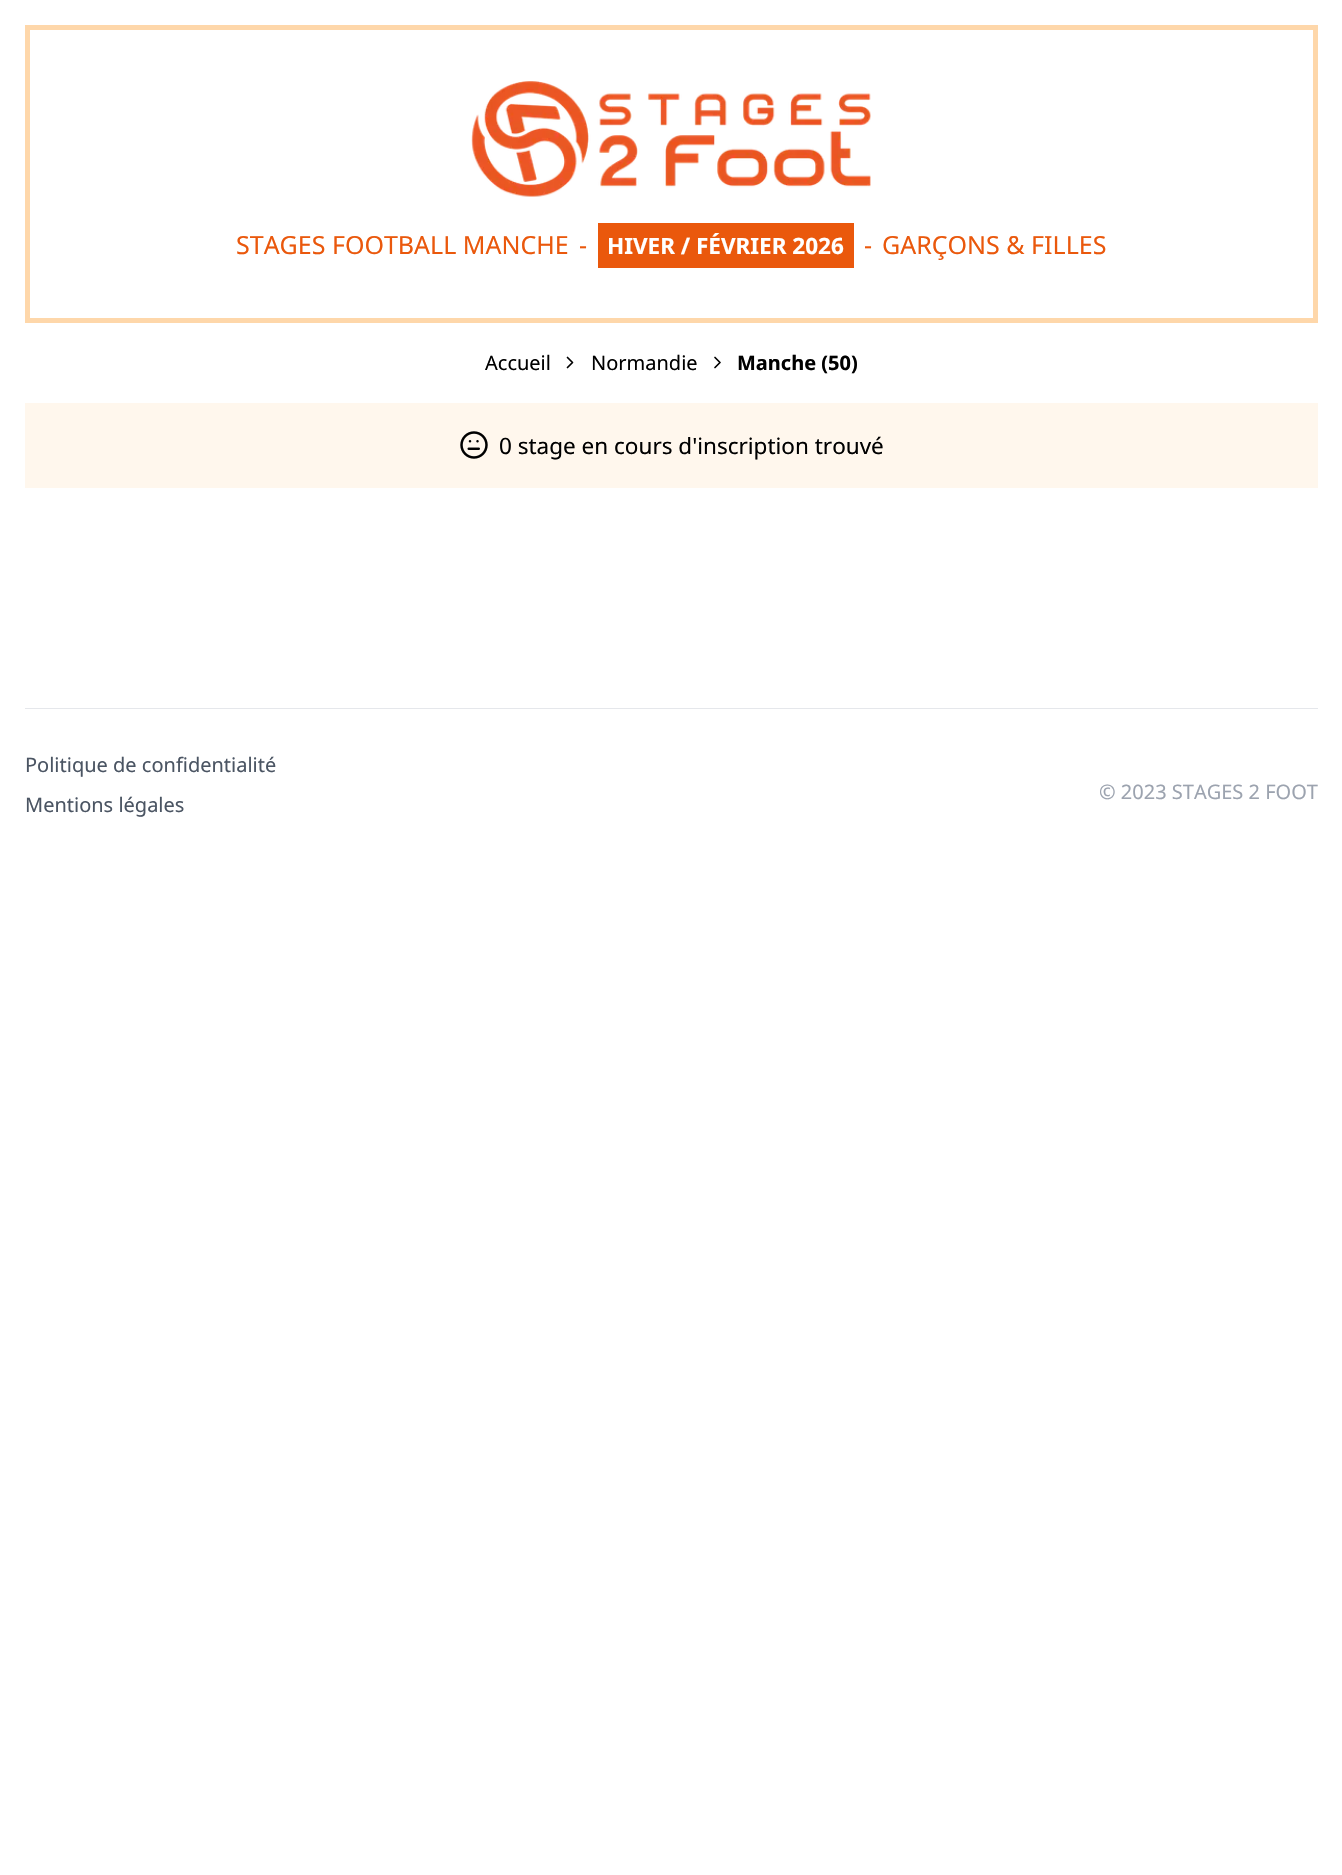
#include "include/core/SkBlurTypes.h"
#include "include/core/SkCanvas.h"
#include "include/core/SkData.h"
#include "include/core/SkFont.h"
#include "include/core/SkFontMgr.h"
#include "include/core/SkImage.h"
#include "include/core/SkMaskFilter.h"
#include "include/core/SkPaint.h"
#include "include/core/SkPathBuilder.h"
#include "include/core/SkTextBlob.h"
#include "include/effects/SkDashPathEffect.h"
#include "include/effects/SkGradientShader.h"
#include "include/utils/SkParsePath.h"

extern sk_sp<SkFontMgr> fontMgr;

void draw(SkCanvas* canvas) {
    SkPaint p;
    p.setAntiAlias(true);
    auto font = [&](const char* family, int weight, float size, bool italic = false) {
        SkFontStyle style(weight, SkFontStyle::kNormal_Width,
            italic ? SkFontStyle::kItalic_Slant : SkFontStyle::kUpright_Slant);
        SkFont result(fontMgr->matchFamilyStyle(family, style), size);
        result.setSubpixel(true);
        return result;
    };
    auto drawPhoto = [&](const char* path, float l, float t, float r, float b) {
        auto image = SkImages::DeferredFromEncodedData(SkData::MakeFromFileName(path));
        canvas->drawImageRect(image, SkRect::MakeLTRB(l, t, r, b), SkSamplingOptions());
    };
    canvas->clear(0xFFFFFFFF);
    p.setStyle(SkPaint::kStroke_Style);
    p.setStrokeWidth(5);
    p.setColor(0xFFFED7AA);
    canvas->drawRect(SkRect::MakeLTRB(27.5f, 27.5f, 1315.5f, 320.5f), p);
    drawPhoto("media/1.png", 471, 81, 871, 197);
    auto font1 = font("Noto Sans", 400, 25);
    p.setStyle(SkPaint::kFill_Style);
    p.setColor(0xFFEA580C);
    canvas->drawString("STAGES FOOTBALL MANCHE", 236, 254, font1, p);
    canvas->drawString("-", 579, 254, font1, p);
    canvas->drawRect(SkRect::MakeLTRB(598, 223, 854, 268), p);
    auto font2 = font("Noto Sans", 700, 22.5f);
    p.setColor(0xFFFFFFFF);
    canvas->drawString("HIVER / FÉVRIER 2026", 607, 254, font2, p);
    p.setColor(0xFFEA580C);
    canvas->drawString("-", 864, 254, font1, p);
    canvas->drawString("GARÇONS & FILLES", 882, 254, font1, p);
    auto font3 = font("Noto Sans", 400, 20);
    p.setColor(0xFF000000);
    canvas->drawString("Accueil", 485, 370, font3, p);
    p.setStyle(SkPaint::kStroke_Style);
    p.setStrokeWidth(1.7f);
    p.setStrokeCap(SkPaint::kRound_Cap);
    p.setStrokeJoin(SkPaint::kRound_Join);
    canvas->drawPath(SkPathBuilder().moveTo(567.5f, 367.5f).lineTo(572.5f, 362.5f).lineTo(567.5f, 357.5f).detach(), p);
    p.setStyle(SkPaint::kFill_Style);
    canvas->drawString("Normandie", 591, 370, font3, p);
    p.setStyle(SkPaint::kStroke_Style);
    canvas->drawPath(SkPathBuilder().moveTo(715, 367.5f).lineTo(720, 362.5f).lineTo(715, 357.5f).detach(), p);
    auto font4 = font("Noto Sans", 700, 20);
    p.setStyle(SkPaint::kFill_Style);
    canvas->drawString("Manche (50)", 737, 370, font4, p);
    p.setColor(0xFFFFF7ED);
    canvas->drawRect(SkRect::MakeLTRB(25, 403, 1318, 488), p);
    drawPhoto("media/2.png", 460, 431, 488, 459);
    auto font5 = font("Noto Sans", 400, 22.5f);
    p.setColor(0xFF000000);
    canvas->drawString("0 stage en cours d'inscription trouvé", 499, 454, font5, p);
    p.setColor(0xFFE5E7EB);
    canvas->drawRect(SkRect::MakeLTRB(25, 708, 1318, 709), p);
    p.setColor(0xFF4B5563);
    canvas->drawString("Politique de confidentialité", 25, 772, font3, p);
    canvas->drawString("Mentions légales", 25, 812, font3, p);
    p.setColor(0xFF9CA3AF);
    canvas->drawString("© 2023 STAGES 2 FOOT", 1099, 799, font3, p);
}
